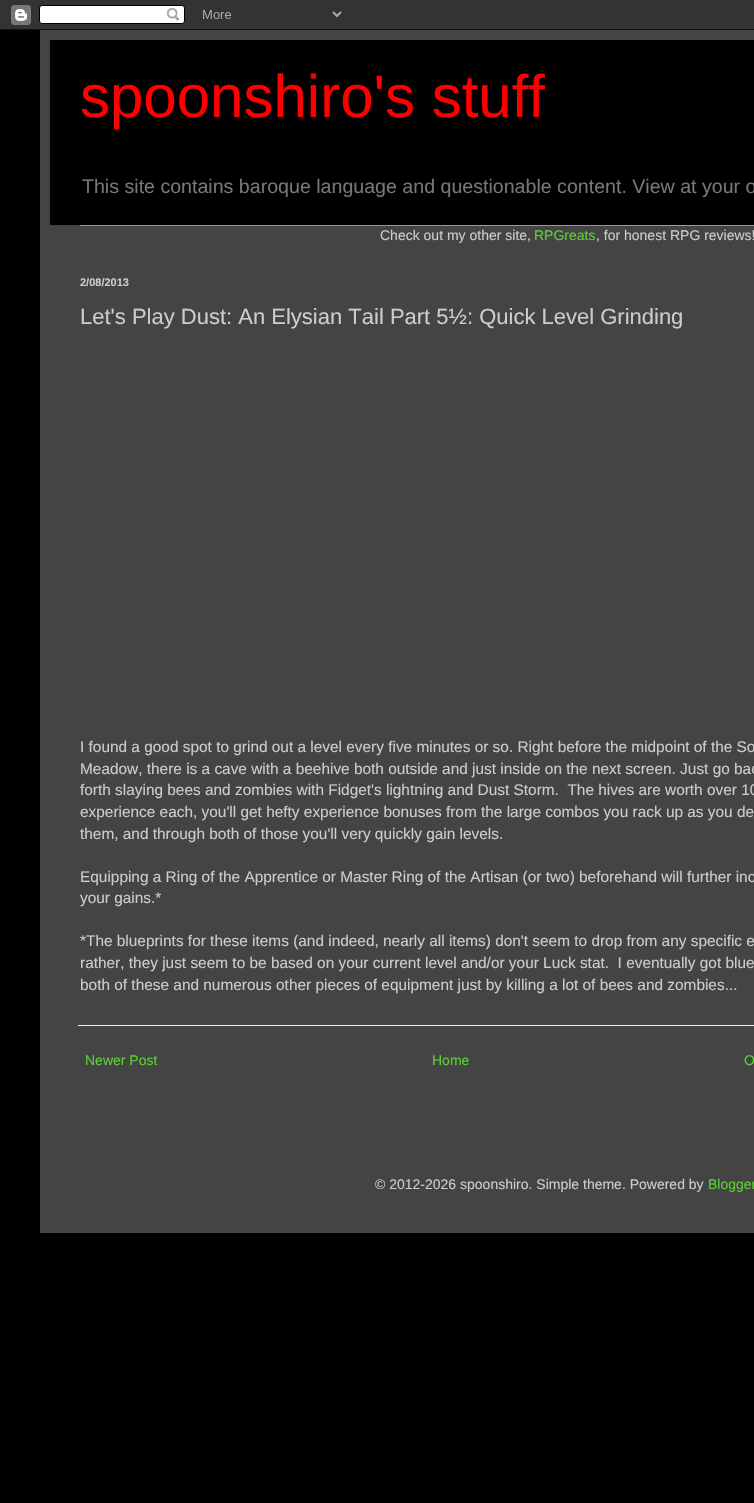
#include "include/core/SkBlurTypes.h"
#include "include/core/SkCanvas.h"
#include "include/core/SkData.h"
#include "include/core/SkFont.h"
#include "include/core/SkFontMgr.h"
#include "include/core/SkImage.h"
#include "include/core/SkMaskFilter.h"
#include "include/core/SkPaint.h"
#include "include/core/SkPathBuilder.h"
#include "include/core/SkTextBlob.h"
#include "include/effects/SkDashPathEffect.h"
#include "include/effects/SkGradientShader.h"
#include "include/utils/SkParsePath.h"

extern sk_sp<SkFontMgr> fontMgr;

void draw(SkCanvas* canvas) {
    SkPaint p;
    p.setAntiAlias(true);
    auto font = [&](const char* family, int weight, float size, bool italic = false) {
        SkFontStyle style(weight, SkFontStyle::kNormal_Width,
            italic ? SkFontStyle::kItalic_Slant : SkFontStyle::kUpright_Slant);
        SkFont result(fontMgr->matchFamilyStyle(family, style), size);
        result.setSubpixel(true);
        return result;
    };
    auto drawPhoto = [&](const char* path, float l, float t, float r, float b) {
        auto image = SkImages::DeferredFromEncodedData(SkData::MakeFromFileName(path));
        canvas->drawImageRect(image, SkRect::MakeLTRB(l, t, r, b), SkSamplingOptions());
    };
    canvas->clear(0xFF000000);
    drawPhoto("media/1.png", 0, 0, 754, 30);
    p.setColor(0xFF444444);
    canvas->drawRect(SkRect::MakeLTRB(40, 30, 754, 1233), p);
    p.setColor(0xFF000000);
    canvas->drawRect(SkRect::MakeLTRB(50, 40, 754, 225), p);
    auto font1 = font("Liberation Sans", 400, 60);
    p.setColor(0xFFFF0000);
    canvas->drawString("spoonshiro's stuff", 80, 117, font1, p);
    auto font2 = font("Liberation Sans", 400, 19.6f);
    p.setColor(0xFF777777);
    canvas->drawString("This site contains baroque language and questionable content. View at your o", 82, 193, font2, p);
    p.setColor(0xFF999999);
    canvas->drawRect(SkRect::MakeLTRB(80, 225, 754, 226), p);
    auto font3 = font("Liberation Sans", 400, 14);
    p.setColor(0xFFCCCCCC);
    canvas->drawString("Check out my other site,", 380, 240, font3, p);
    p.setColor(0xFF5CD035);
    canvas->drawString("RPGreats", 534, 240, font3, p);
    p.setColor(0xFFCCCCCC);
    canvas->drawString(", for honest RPG reviews!", 596, 240, font3, p);
    auto font4 = font("Liberation Sans", 700, 11);
    canvas->drawString("2/08/2013", 80, 286, font4, p);
    auto font5 = font("Liberation Sans", 400, 22);
    canvas->drawString("Let's Play Dust: An Elysian Tail Part 5½: Quick Level Grinding", 80, 324, font5, p);
    auto font6 = font("Liberation Sans", 400, 15.4f);
    {
        const struct { const char* s; float x, y; } items[] = {
            {"I found a good spot to grind out a level every five minutes or so. Right before the midpoint of the So", 80, 752},
            {"Meadow, there is a cave with a beehive both outside and just inside on the next screen. Just go bac", 80, 774},
            {"forth slaying bees and zombies with Fidget's lightning and Dust Storm.  The hives are worth over 10", 80, 795},
            {"experience each, you'll get hefty experience bonuses from the large combos you rack up as you de", 80, 817},
            {"them, and through both of those you'll very quickly gain levels.", 80, 839},
            {"Equipping a Ring of the Apprentice or Master Ring of the Artisan (or two) beforehand will further inc", 80, 882},
            {"your gains.*", 80, 903},
            {"*The blueprints for these items (and indeed, nearly all items) don't seem to drop from any specific e", 80, 946},
            {"rather, they just seem to be based on your current level and/or your Luck stat.  I eventually got blue", 80, 968},
            {"both of these and numerous other pieces of equipment just by killing a lot of bees and zombies...", 80, 990},
        };
        for (auto [s, x, y] : items) {
            canvas->drawString(s, x, y, font6, p);
        }
    }
    p.setColor(0xFFEEEEEE);
    canvas->drawRect(SkRect::MakeLTRB(78, 1025, 754, 1026), p);
    p.setColor(0xFF5CD035);
    {
        const struct { const char* s; float x, y; } items[] = {
            {"Newer Post", 85, 1065},
            {"Home", 432, 1065},
            {"O", 744, 1065},
        };
        for (auto [s, x, y] : items) {
            canvas->drawString(s, x, y, font3, p);
        }
    }
    p.setColor(0xFFCCCCCC);
    canvas->drawString("© 2012-2026 spoonshiro. Simple theme. Powered by", 375, 1189, font3, p);
    p.setColor(0xFF5CD035);
    canvas->drawString("Blogger", 708, 1189, font3, p);
}
